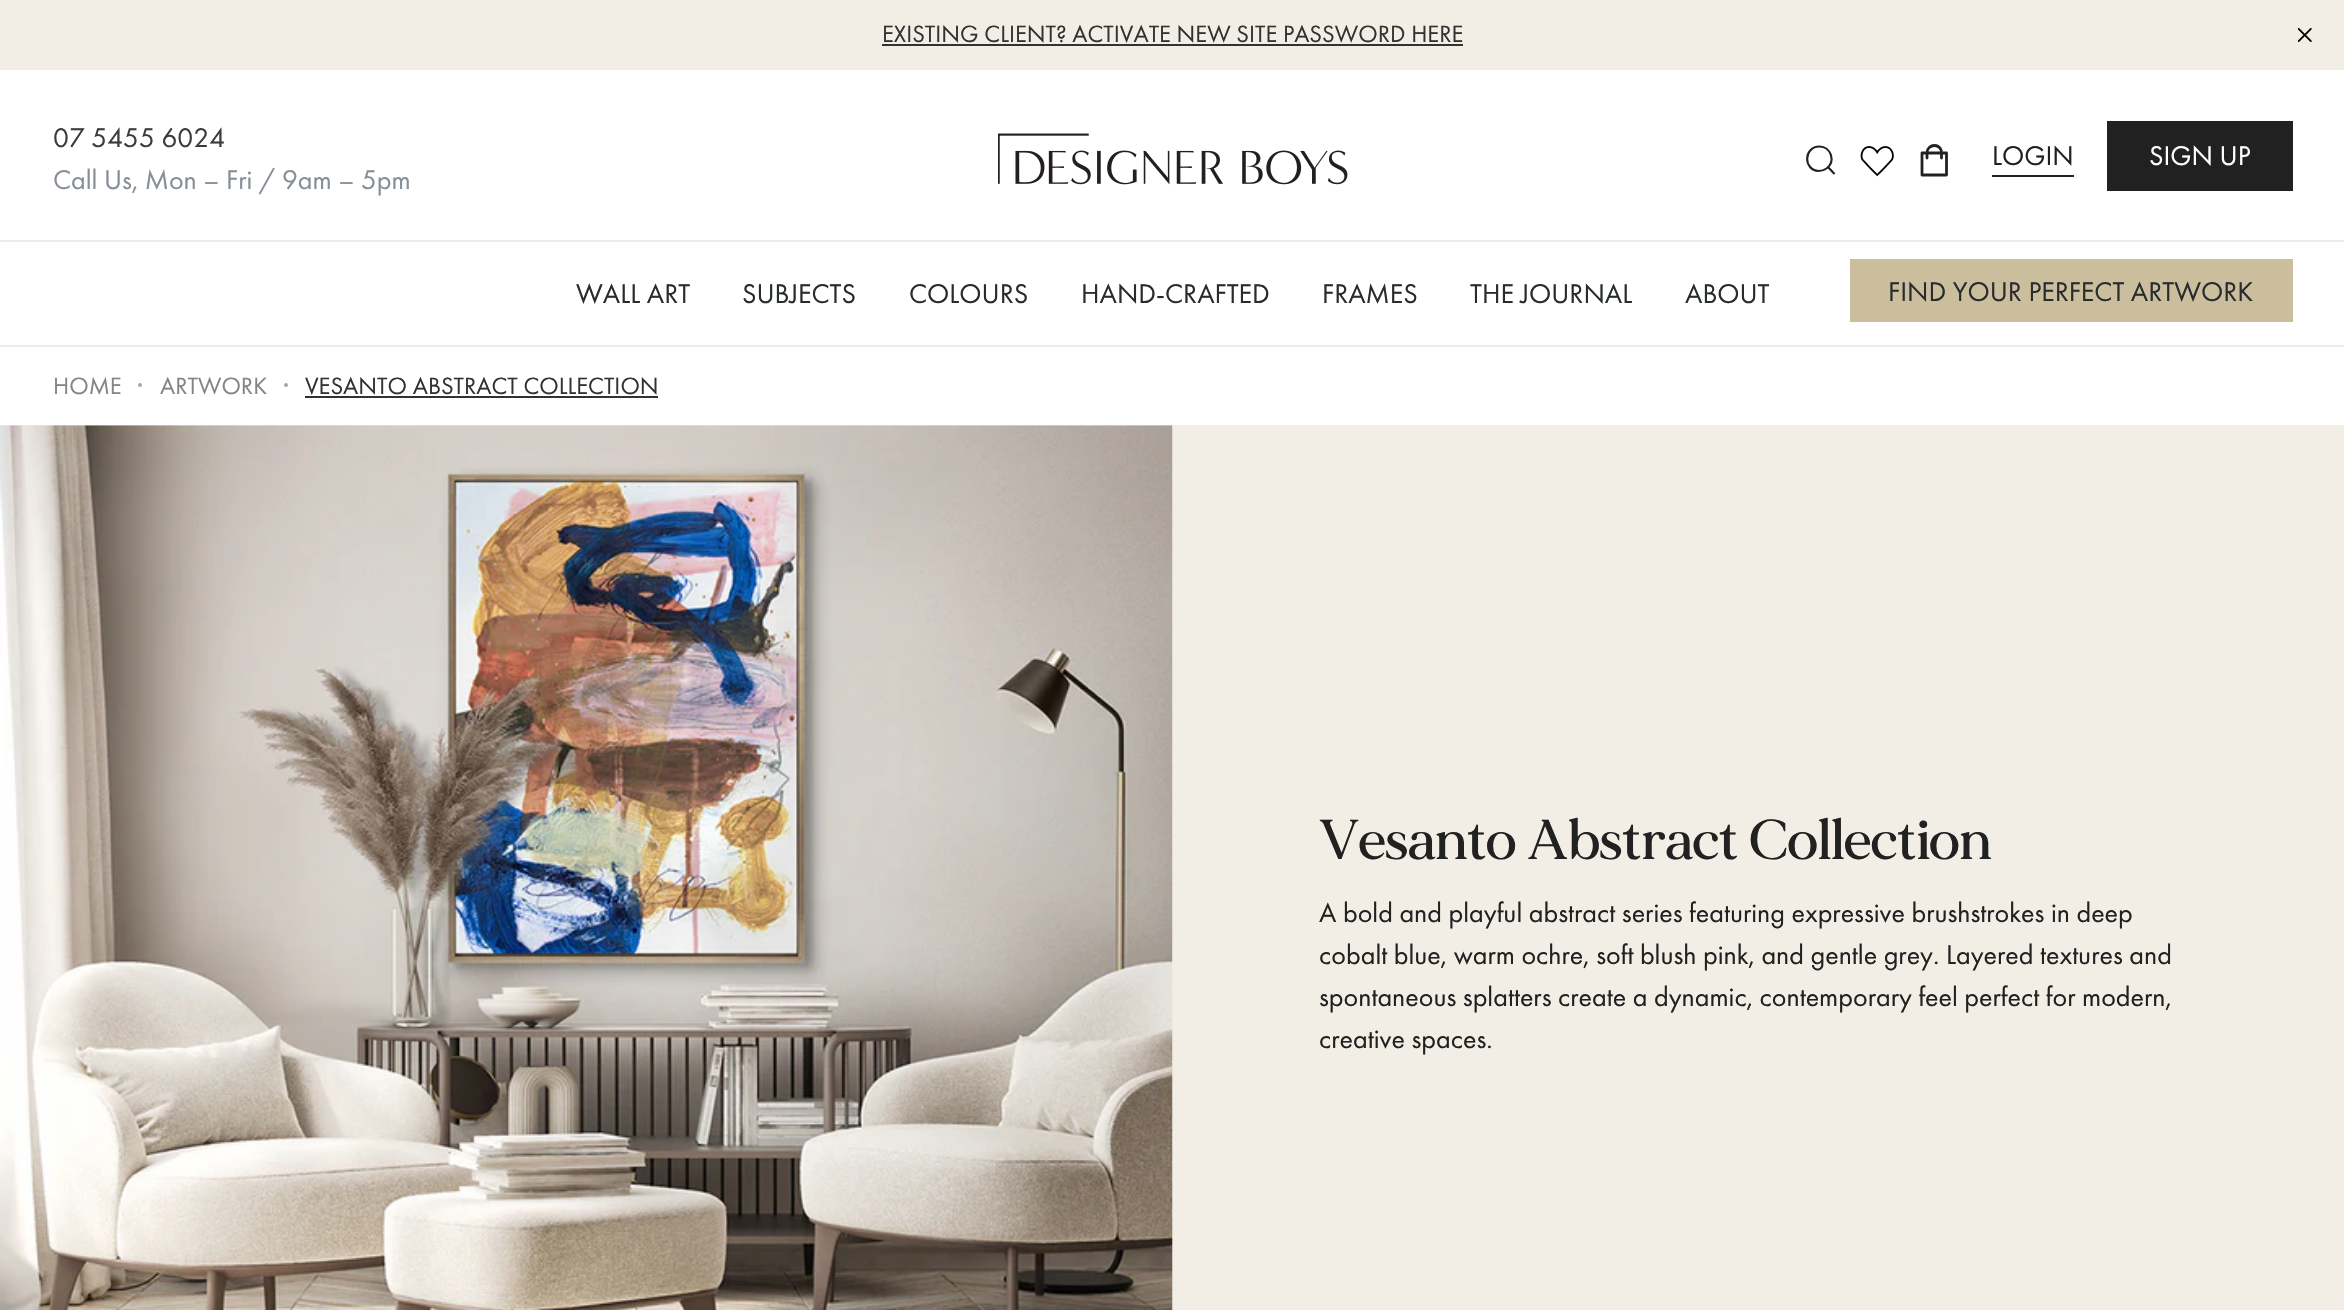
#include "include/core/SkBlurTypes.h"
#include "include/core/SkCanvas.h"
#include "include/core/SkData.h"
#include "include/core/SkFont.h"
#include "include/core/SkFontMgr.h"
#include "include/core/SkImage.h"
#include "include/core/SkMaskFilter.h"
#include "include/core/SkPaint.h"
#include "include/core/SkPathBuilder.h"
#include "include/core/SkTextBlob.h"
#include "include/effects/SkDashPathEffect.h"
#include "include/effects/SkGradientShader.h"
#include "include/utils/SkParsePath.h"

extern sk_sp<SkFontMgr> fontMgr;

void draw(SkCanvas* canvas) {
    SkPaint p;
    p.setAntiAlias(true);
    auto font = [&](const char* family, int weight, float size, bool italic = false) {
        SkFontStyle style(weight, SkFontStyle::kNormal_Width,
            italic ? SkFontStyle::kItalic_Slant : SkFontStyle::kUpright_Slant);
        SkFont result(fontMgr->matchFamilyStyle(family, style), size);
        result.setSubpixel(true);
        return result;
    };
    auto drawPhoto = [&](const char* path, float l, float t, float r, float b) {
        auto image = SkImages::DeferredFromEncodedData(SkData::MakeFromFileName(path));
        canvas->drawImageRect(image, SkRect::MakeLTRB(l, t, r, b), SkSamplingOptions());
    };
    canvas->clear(0xFFFFFFFF);
    p.setColor(0xFFF2EEE6);
    canvas->drawRect(SkRect::MakeLTRB(0, 0, 2344, 70), p);
    auto font1 = font("Futura PT", 400, 24.5f);
    p.setColor(0xFF323232);
    canvas->drawString("EXISTING CLIENT? ACTIVATE NEW SITE PASSWORD HERE", 882, 42, font1, p);
    canvas->drawRect(SkRect::MakeLTRB(882, 44, 1463, 46), p);
    drawPhoto("media/1.png", 2298, 28, 2312, 42);
    auto font2 = font("Futura PT", 400, 28);
    p.setColor(0xFF3C3C3C);
    canvas->drawString("07 5455 6024", 53, 147, font2, p);
    p.setColor(0xFF868E98);
    canvas->drawString("Call Us, Mon – Fri / 9am – 5pm", 53, 189, font2, p);
    drawPhoto("media/2.png", 998, 133, 1348, 185);
    p.setStyle(SkPaint::kStroke_Style);
    p.setStrokeWidth(2.1f);
    p.setColor(0xFF212121);
    canvas->drawPath(SkPathBuilder().moveTo(1819.5f, 146.5f).cubicTo(1831, 146.5f, 1836, 161.5f, 1826.5f, 168.5f).cubicTo(1824.5f, 170, 1821.5f, 171, 1818.5f, 171).cubicTo(1803, 170, 1803.5f, 146.5f, 1819.5f, 146.5f).close().moveTo(1828, 167).lineTo(1834.5f, 174).detach(), p);
    drawPhoto("media/3.png", 1860, 146, 1894, 177);
    p.setStrokeWidth(2.8f);
    p.setStrokeCap(SkPaint::kRound_Cap);
    p.setStrokeJoin(SkPaint::kRound_Join);
    canvas->drawPath(SkPathBuilder().moveTo(1941.5f, 158).lineTo(1941.5f, 152.5f).cubicTo(1941.5f, 148.5f, 1938.5f, 145.5f, 1934.5f, 145.5f).cubicTo(1930.5f, 145.5f, 1927, 148.5f, 1927, 152.5f).lineTo(1927, 158).moveTo(1946.5f, 153).lineTo(1922, 153).lineTo(1922, 175).lineTo(1946.5f, 175).close().detach(), p);
    p.setStyle(SkPaint::kFill_Style);
    canvas->drawRect(SkRect::MakeLTRB(1992, 175, 2074, 177), p);
    canvas->drawString("LOGIN", 1992, 165, font2, p);
    canvas->drawRect(SkRect::MakeLTRB(2107, 121, 2293, 191), p);
    p.setColor(0xFFFFFFFF);
    canvas->drawString("SIGN UP", 2149, 165, font2, p);
    p.setColor(0xFFECECEC);
    canvas->drawRect(SkRect::MakeLTRB(0, 240, 2344, 242), p);
    p.setColor(0xFF282C2E);
    {
        const struct { const char* s; float x, y; } items[] = {
            {"WALL ART", 576, 303},
            {"SUBJECTS", 742, 303},
            {"COLOURS", 909, 303},
            {"HAND-CRAFTED", 1081, 303},
            {"FRAMES", 1322, 303},
            {"THE JOURNAL", 1470, 303},
            {"ABOUT", 1685, 303},
        };
        for (auto [s, x, y] : items) {
            canvas->drawString(s, x, y, font2, p);
        }
    }
    p.setColor(0xFFCBBE9D);
    canvas->drawRect(SkRect::MakeLTRB(1850, 259, 2293, 322), p);
    p.setColor(0xFF282C2E);
    canvas->drawString("FIND YOUR PERFECT ARTWORK", 1888, 301, font2, p);
    p.setColor(0xFFECECEC);
    canvas->drawRect(SkRect::MakeLTRB(0, 345, 2344, 347), p);
    p.setColor(0xFF848487);
    canvas->drawString("HOME", 53, 394, font1, p);
    p.setColor(0xFFA6A6A6);
    canvas->drawCircle(140, 385, 2, p);
    p.setColor(0xFF848487);
    canvas->drawString("ARTWORK", 160, 394, font1, p);
    p.setColor(0xFFA6A6A6);
    canvas->drawCircle(286, 385, 2, p);
    p.setColor(0xFF323232);
    canvas->drawString("VESANTO ABSTRACT COLLECTION", 305, 394, font1, p);
    canvas->drawRect(SkRect::MakeLTRB(305, 396, 658, 398), p);
    p.setColor(0xFFF2EEE6);
    canvas->drawRect(SkRect::MakeLTRB(0, 425, 2344, 1310), p);
    drawPhoto("media/4.png", 0, 425, 1173, 1310);
    auto font3 = font("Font", 500, 56);
    p.setColor(0xFF212121);
    canvas->drawString("Vesanto Abstract Collection", 1319, 859, font3, p);
    {
        const struct { const char* s; float x, y; } items[] = {
            {"A bold and playful abstract series featuring expressive brushstrokes in deep", 1319, 922},
            {"cobalt blue, warm ochre, soft blush pink, and gentle grey. Layered textures and", 1319, 964},
            {"spontaneous splatters create a dynamic, contemporary feel perfect for modern,", 1319, 1006},
            {"creative spaces.", 1319, 1048},
        };
        for (auto [s, x, y] : items) {
            canvas->drawString(s, x, y, font2, p);
        }
    }
}
